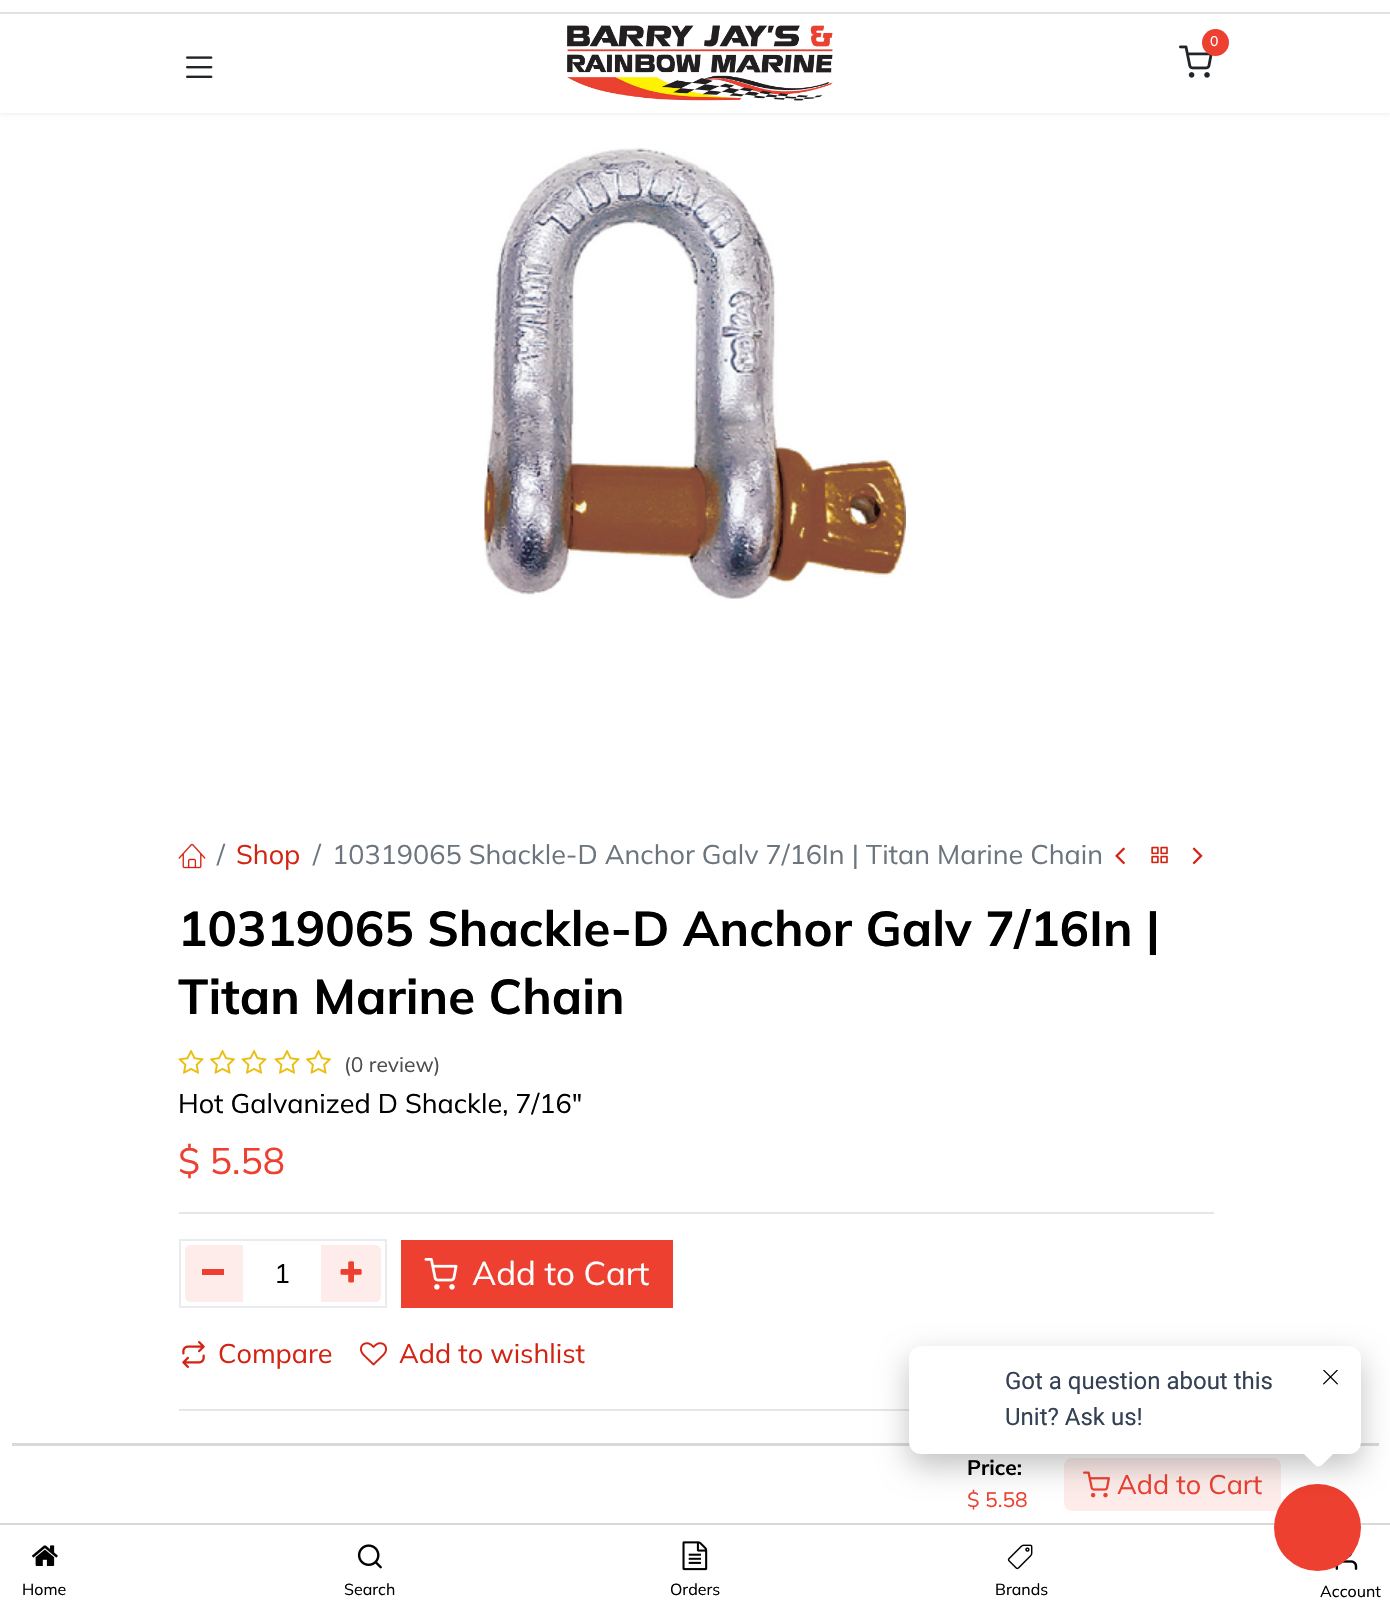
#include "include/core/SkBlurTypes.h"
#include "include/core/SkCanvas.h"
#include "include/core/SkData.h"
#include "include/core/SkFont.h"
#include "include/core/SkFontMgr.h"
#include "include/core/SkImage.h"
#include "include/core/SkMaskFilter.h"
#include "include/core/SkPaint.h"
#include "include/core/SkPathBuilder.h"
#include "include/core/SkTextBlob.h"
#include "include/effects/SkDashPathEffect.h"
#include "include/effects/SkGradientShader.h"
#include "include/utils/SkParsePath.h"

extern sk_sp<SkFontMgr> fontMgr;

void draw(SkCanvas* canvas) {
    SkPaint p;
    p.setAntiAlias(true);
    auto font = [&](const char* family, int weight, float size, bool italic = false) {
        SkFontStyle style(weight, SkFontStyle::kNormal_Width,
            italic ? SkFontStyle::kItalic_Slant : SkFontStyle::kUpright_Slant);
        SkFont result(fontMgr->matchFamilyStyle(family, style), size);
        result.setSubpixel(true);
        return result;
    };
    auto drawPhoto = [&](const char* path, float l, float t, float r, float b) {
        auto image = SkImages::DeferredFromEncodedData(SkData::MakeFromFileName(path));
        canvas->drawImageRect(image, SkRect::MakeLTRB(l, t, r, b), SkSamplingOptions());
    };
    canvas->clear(0xFFFFFFFF);
    p.setColor(0xFFE4E5E5);
    canvas->drawRect(SkRect::MakeLTRB(0, 12, 1390, 14), p);
    p.setColor(0x12000000);
    p.setMaskFilter(SkMaskFilter::MakeBlur(kNormal_SkBlurStyle, 2));
    canvas->drawRect(SkRect::MakeLTRB(0, 15, 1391, 114), p);
    p.setMaskFilter(nullptr);
    p.setColor(0xFFFFFFFF);
    canvas->drawRect(SkRect::MakeLTRB(0, 14, 1390, 113), p);
    drawPhoto("media/1.png", 567, 25, 833, 101);
    drawPhoto("media/2.png", 1179, 45, 1213, 78);
    p.setColor(0xFFED4030);
    canvas->drawCircle(1215.5f, 42.5f, 13.5f, p);
    auto font1 = font("Mulish", 400, 14);
    p.setColor(0xFFFFFFFF);
    canvas->drawString("0", 1210, 46, font1, p);
    drawPhoto("media/3.png", 186, 56, 213, 78);
    drawPhoto("media/4.png", 484, 148, 906, 599);
    drawPhoto("media/5.png", 178, 843, 206, 869);
    auto font2 = font("Mulish", 400, 27);
    p.setColor(0xFF6C757D);
    canvas->drawString("/", 217, 864, font2, p);
    p.setColor(0xFFD32312);
    canvas->drawString("Shop", 236, 864, font2, p);
    p.setColor(0xFF6C757D);
    canvas->drawString("/", 313, 864, font2, p);
    canvas->drawString("10319065 Shackle-D Anchor Galv 7/16In | Titan Marine Chain", 332, 864, font2, p);
    drawPhoto("media/6.png", 1115, 847, 1125, 865);
    drawPhoto("media/7.png", 1151, 846, 1168, 864);
    drawPhoto("media/8.png", 1192, 847, 1203, 865);
    auto font3 = font("Mulish", 700, 49.1f);
    p.setColor(0xFF000000);
    canvas->drawString("10319065 Shackle-D Anchor Galv 7/16In |", 178, 946, font3, p);
    canvas->drawString("Titan Marine Chain", 178, 1014, font3, p);
    drawPhoto("media/9.png", 178, 1049, 204, 1074);
    drawPhoto("media/10.png", 210, 1049, 235, 1074);
    drawPhoto("media/9.png", 241, 1049, 267, 1074);
    drawPhoto("media/9.png", 274, 1049, 300, 1074);
    drawPhoto("media/10.png", 306, 1049, 331, 1074);
    auto font4 = font("Mulish", 400, 21);
    p.setColor(0xFF4D4D4D);
    canvas->drawString("(0 review)", 344, 1072, font4, p);
    p.setColor(0xFF000000);
    canvas->drawString("Hot Galvanized D Shackle, 7/16\"", 178, 1113, font2, p);
    auto font5 = font("Mulish", 400, 37);
    p.setColor(0xFFED4030);
    canvas->drawString("$ 5.58", 178, 1174, font5, p);
    p.setColor(0xFFE6E6E6);
    canvas->drawRect(SkRect::MakeLTRB(179, 1212, 1214, 1214), p);
    p.setStyle(SkPaint::kStroke_Style);
    p.setStrokeWidth(2);
    p.setColor(0xFFE9ECEF);
    canvas->drawRect(SkRect::MakeLTRB(180, 1240, 386, 1307), p);
    p.setStyle(SkPaint::kFill_Style);
    p.setColor(0xFFFDECEA);
    canvas->drawPath(SkPathBuilder().moveTo(191, 1245).lineTo(243, 1245).lineTo(243, 1302).lineTo(191, 1302).cubicTo(187.5f, 1302, 185, 1299.5f, 185, 1296).lineTo(185, 1251).cubicTo(185, 1247.5f, 187.5f, 1245, 191, 1245).close().detach(), p);
    p.setColor(0xFFED4030);
    canvas->drawRect(SkRect::MakeLTRB(202, 1269, 224, 1275), p);
    p.setColor(0xFF000000);
    canvas->drawString("1", 274, 1283, font2, p);
    p.setColor(0xFFFDECEA);
    canvas->drawPath(SkPathBuilder().moveTo(321, 1245).lineTo(375, 1245).cubicTo(378.5f, 1245, 381, 1247.5f, 381, 1251).lineTo(381, 1296).cubicTo(381, 1299.5f, 378.5f, 1302, 375, 1302).lineTo(321, 1302).close().detach(), p);
    drawPhoto("media/11.png", 340, 1261, 362, 1283);
    p.setColor(0xFFED4030);
    canvas->drawRect(SkRect::MakeLTRB(401, 1240, 673, 1308), p);
    drawPhoto("media/12.png", 424, 1258, 458, 1290);
    auto font6 = font("Mulish", 400, 33);
    p.setColor(0xFFFFFFFF);
    canvas->drawString("Add to Cart", 472, 1285, font6, p);
    drawPhoto("media/13.png", 182, 1341, 205, 1368);
    p.setColor(0xFFD32312);
    canvas->drawString("Compare", 218, 1363, font2, p);
    drawPhoto("media/14.png", 360, 1342, 387, 1366);
    canvas->drawString("Add to wishlist", 399, 1363, font2, p);
    {
        const struct { float l, t, r, b; SkColor color; } items[] = {
            {179, 1409, 909, 1411, 0xFFE6E6E6},
            {12, 1443, 1379, 1446, 0xFFD9D9D9},
            {0, 1523, 1390, 1525, 0xFFD9D9D9},
        };
        for (auto [l, t, r, b, color] : items) {
            p.setColor(color);
            canvas->drawRect(SkRect::MakeLTRB(l, t, r, b), p);
        }
    }
    auto font7 = font("Mulish", 700, 21);
    p.setColor(0xFF000000);
    canvas->drawString("Price:", 967, 1475, font7, p);
    p.setColor(0xFFED4030);
    canvas->drawString("$ 5.58", 967, 1507, font4, p);
    p.setColor(0xFFFDECEA);
    canvas->drawRoundRect(SkRect::MakeLTRB(1064, 1458, 1281, 1511), 8, 8, p);
    drawPhoto("media/15.png", 1083, 1471, 1110, 1498);
    p.setColor(0xFFED4030);
    canvas->drawString("Add to Cart", 1117, 1494, font2, p);
    drawPhoto("media/16.png", 32, 1545, 58, 1566);
    auto font8 = font("Mulish", 400, 16);
    p.setColor(0xFF000000);
    canvas->drawString("Home", 22, 1595, font8, p);
    drawPhoto("media/17.png", 357, 1544, 382, 1569);
    canvas->drawString("Search", 344, 1595, font8, p);
    drawPhoto("media/18.png", 682, 1541, 708, 1571);
    canvas->drawString("Orders", 670, 1595, font8, p);
    drawPhoto("media/19.png", 1007, 1544, 1033, 1570);
    canvas->drawString("Brands", 995, 1595, font8, p);
    drawPhoto("media/20.png", 1335, 1552, 1358, 1570);
    canvas->drawString("Account", 1320, 1597, font8, p);
    p.setColor(0xFFED4030);
    canvas->drawCircle(1317.5f, 1527.5f, 43.5f, p);
    p.setColor(0x3D000000);
    p.setMaskFilter(SkMaskFilter::MakeBlur(kNormal_SkBlurStyle, 15));
    canvas->drawRoundRect(SkRect::MakeLTRB(909, 1358, 1361, 1466), 12, 12, p);
    p.setMaskFilter(nullptr);
    p.setColor(0xFFFFFFFF);
    canvas->drawRoundRect(SkRect::MakeLTRB(909, 1346, 1361, 1454), 12, 12, p);
    auto font9 = font("Roboto", 400, 24);
    p.setColor(0xFF344054);
    canvas->drawString("Got a question about this", 1005, 1389, font9, p);
    canvas->drawString("Unit? Ask us!", 1005, 1425, font9, p);
    p.setColor(0xFFFFFFFF);
    canvas->drawPath(SkPathBuilder().moveTo(1322.5f, 1430.5f).lineTo(1335.5f, 1443.5f).cubicTo(1338, 1445.5f, 1338, 1449.5f, 1335.5f, 1451.5f).lineTo(1322.5f, 1464.5f).cubicTo(1320.5f, 1467, 1316.5f, 1467, 1314.5f, 1464.5f).lineTo(1301.5f, 1451.5f).cubicTo(1299, 1449.5f, 1299, 1445.5f, 1301.5f, 1443.5f).lineTo(1314.5f, 1430.5f).cubicTo(1316.5f, 1428, 1320.5f, 1428, 1322.5f, 1430.5f).close().detach(), p);
    drawPhoto("media/21.png", 1323, 1370, 1338, 1385);
}
